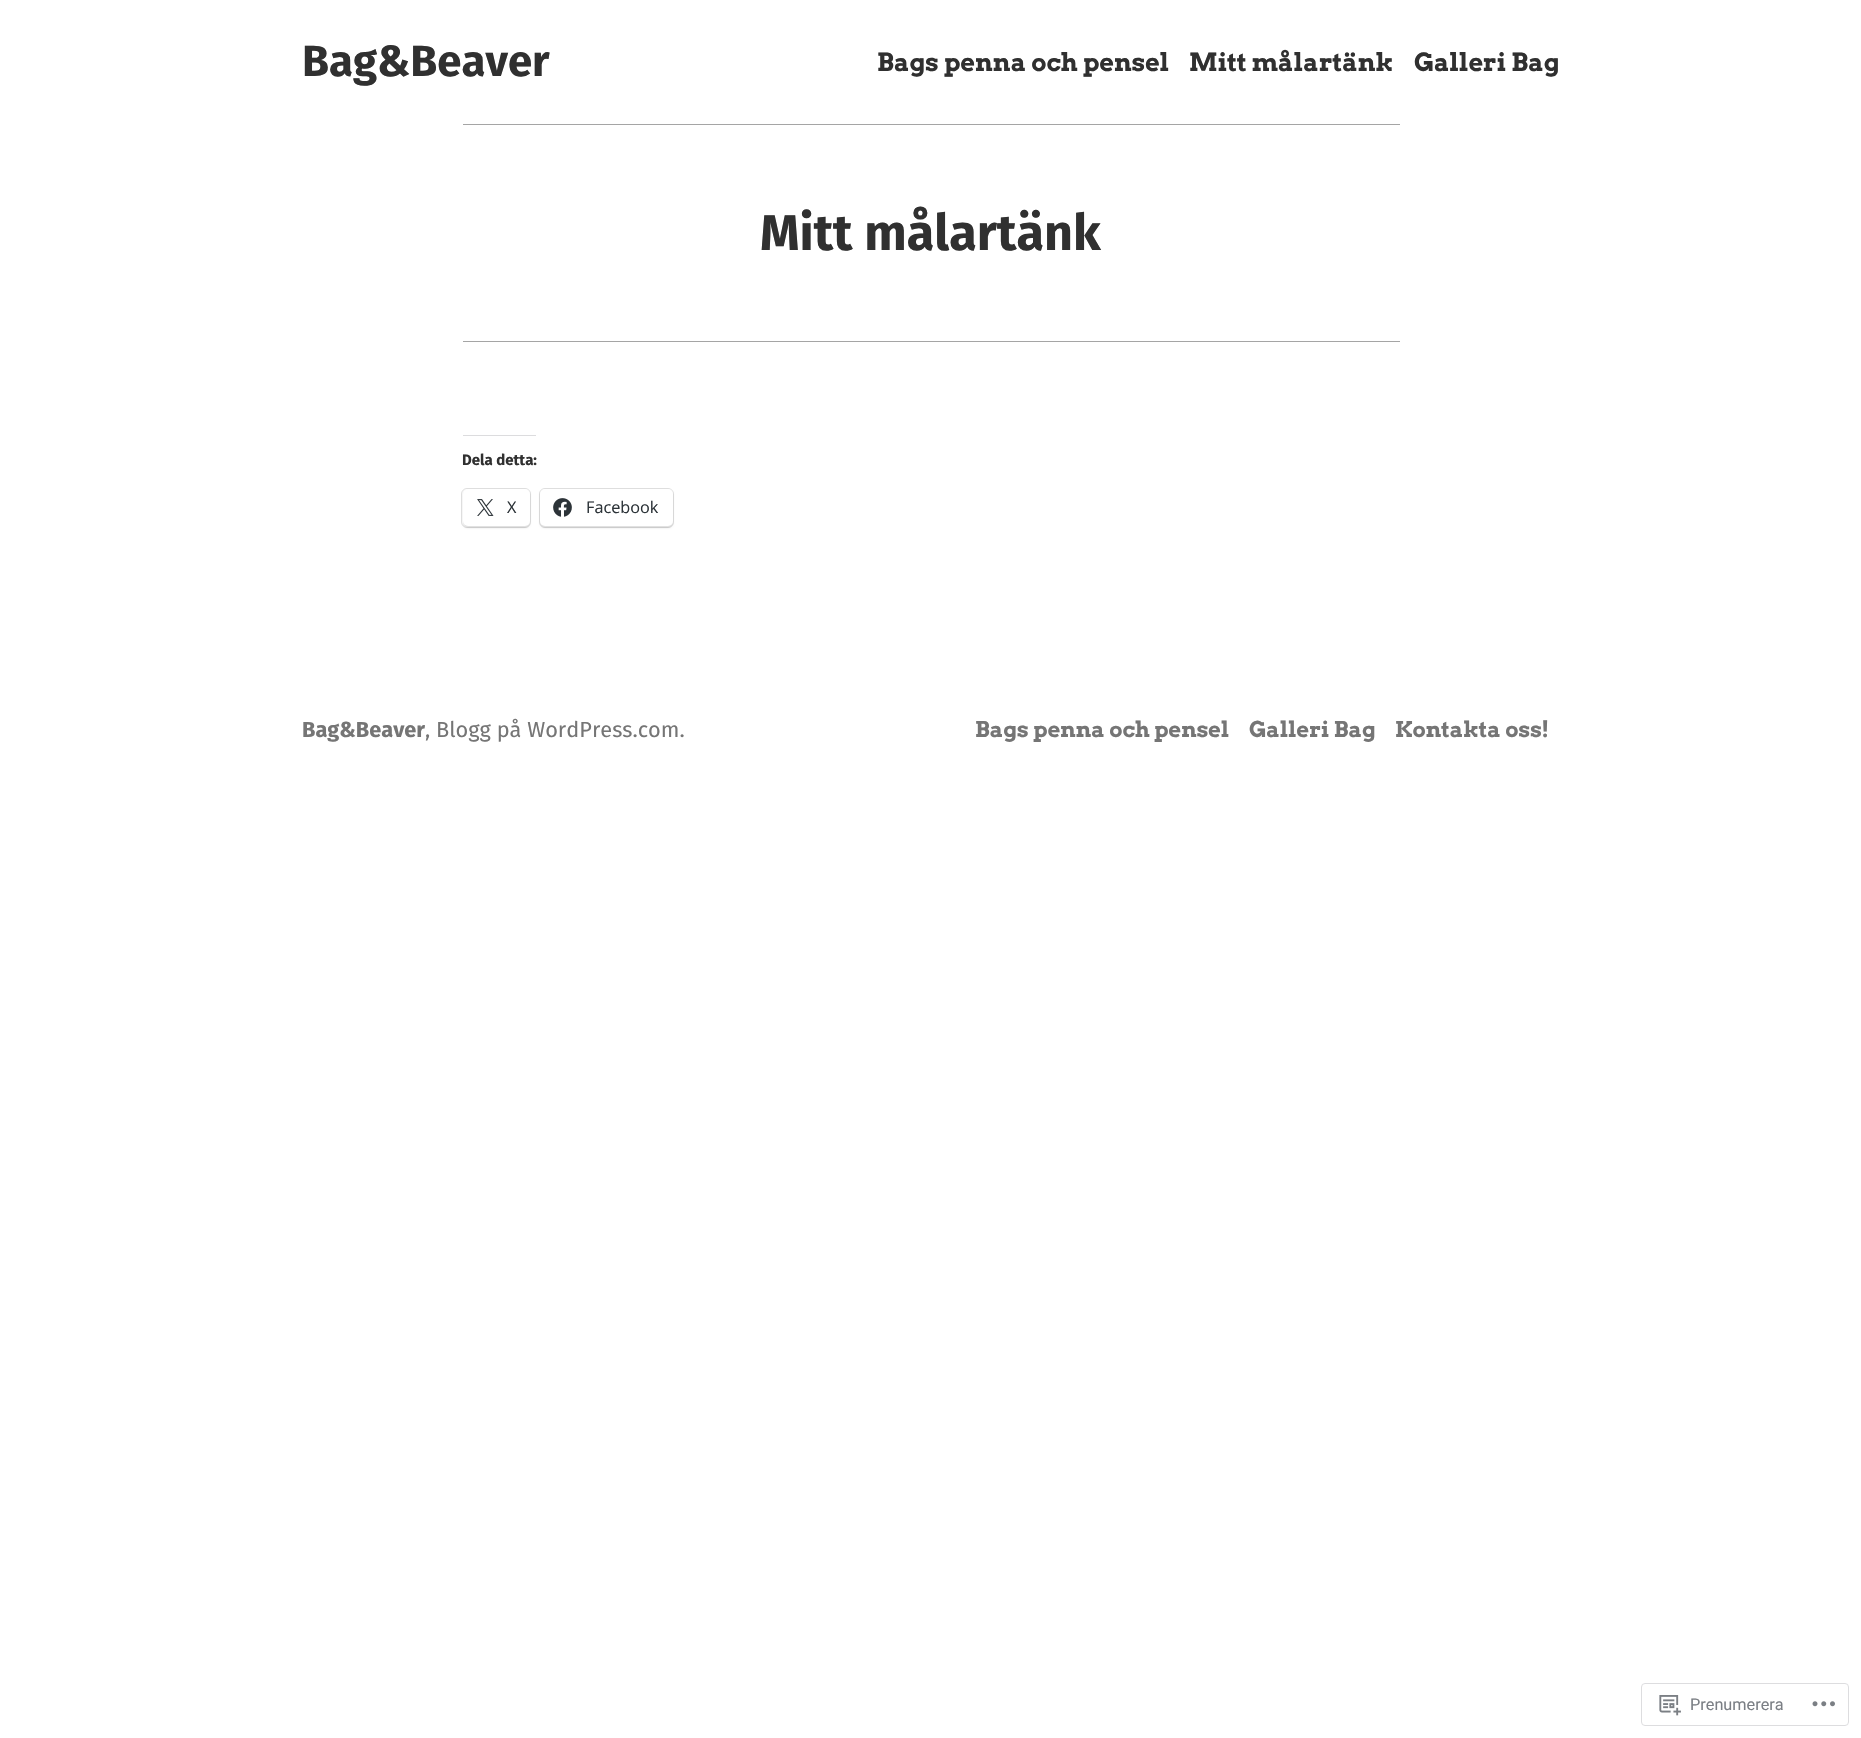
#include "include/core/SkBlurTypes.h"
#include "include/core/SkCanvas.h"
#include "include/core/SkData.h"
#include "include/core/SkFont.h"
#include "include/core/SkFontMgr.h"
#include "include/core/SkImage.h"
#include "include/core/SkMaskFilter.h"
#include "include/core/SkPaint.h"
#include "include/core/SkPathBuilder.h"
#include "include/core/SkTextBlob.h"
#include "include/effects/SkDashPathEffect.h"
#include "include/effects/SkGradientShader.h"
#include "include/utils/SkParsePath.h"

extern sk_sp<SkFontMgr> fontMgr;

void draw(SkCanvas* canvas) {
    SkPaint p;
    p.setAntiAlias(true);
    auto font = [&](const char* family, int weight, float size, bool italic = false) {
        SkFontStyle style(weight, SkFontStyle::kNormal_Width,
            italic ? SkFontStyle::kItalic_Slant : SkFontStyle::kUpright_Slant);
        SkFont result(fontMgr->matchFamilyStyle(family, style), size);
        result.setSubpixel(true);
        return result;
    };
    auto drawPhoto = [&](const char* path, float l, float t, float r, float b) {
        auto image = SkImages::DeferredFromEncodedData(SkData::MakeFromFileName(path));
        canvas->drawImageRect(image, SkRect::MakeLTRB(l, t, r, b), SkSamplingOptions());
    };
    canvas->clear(0xFFFFFFFF);
    auto font1 = font("Fira Sans", 700, 43.75f);
    p.setColor(0xFF303030);
    canvas->drawString("Bag&Beaver", 302, 76, font1, p);
    auto font2 = font("Arvo", 700, 25);
    {
        const struct { const char* s; float x, y; } items[] = {
            {"Bags penna och pensel", 877, 71},
            {"Mitt målartänk", 1189, 71},
            {"Galleri Bag", 1414, 71},
        };
        for (auto [s, x, y] : items) {
            canvas->drawString(s, x, y, font2, p);
        }
    }
    p.setColor(0xFFA5A5A5);
    canvas->drawRect(SkRect::MakeLTRB(463, 124, 1400, 125), p);
    auto font3 = font("Fira Sans", 700, 50.25f);
    p.setColor(0xFF303030);
    canvas->drawString("Mitt målartänk", 760, 250, font3, p);
    p.setColor(0xFFA5A5A5);
    canvas->drawRect(SkRect::MakeLTRB(463, 341, 1400, 342), p);
    p.setColor(0xFFDCDCDE);
    canvas->drawRect(SkRect::MakeLTRB(463, 435, 536, 436), p);
    auto font4 = font("Fira Sans", 700, 15);
    p.setColor(0xFF303030);
    canvas->drawString("Dela detta:", 462, 465, font4, p);
    p.setStyle(SkPaint::kStroke_Style);
    p.setStrokeWidth(1);
    p.setColor(0xFFE0E0E0);
    canvas->drawRoundRect(SkRect::MakeLTRB(461.5f, 488.5f, 530.5f, 527.5f), 5.5f, 5.5f, p);
    p.setStyle(SkPaint::kFill_Style);
    p.setColor(0x1F000000);
    p.setMaskFilter(SkMaskFilter::MakeBlur(kNormal_SkBlurStyle, 1));
    canvas->drawRoundRect(SkRect::MakeLTRB(463, 490, 530, 528), 5, 5, p);
    p.setMaskFilter(nullptr);
    p.setColor(0xFFFFFFFF);
    canvas->drawRoundRect(SkRect::MakeLTRB(463, 489, 530, 526), 5, 5, p);
    drawPhoto("media/1.png", 477, 499, 494, 516);
    auto font5 = font("Open Sans", 400, 16.25f);
    p.setColor(0xFF2C3338);
    canvas->drawString("X", 507, 513, font5, p);
    p.setStyle(SkPaint::kStroke_Style);
    p.setColor(0xFFE0E0E0);
    canvas->drawRoundRect(SkRect::MakeLTRB(539.5f, 488.5f, 673.5f, 527.5f), 5.5f, 5.5f, p);
    p.setStyle(SkPaint::kFill_Style);
    p.setColor(0x1F000000);
    p.setMaskFilter(SkMaskFilter::MakeBlur(kNormal_SkBlurStyle, 1));
    canvas->drawRoundRect(SkRect::MakeLTRB(540, 490, 673, 528), 5, 5, p);
    p.setMaskFilter(nullptr);
    p.setColor(0xFFFFFFFF);
    canvas->drawRoundRect(SkRect::MakeLTRB(540, 489, 673, 526), 5, 5, p);
    drawPhoto("media/2.png", 553, 498, 572, 517);
    p.setColor(0xFF2C3338);
    canvas->drawString("Facebook", 586, 513, font5, p);
    auto font6 = font("Fira Sans", 700, 21.75f);
    p.setColor(0xFF757575);
    canvas->drawString("Bag&Beaver", 302, 737, font6, p);
    auto font7 = font("Fira Sans", 400, 21.75f);
    canvas->drawString(", Blogg på WordPress.com.", 425, 737, font7, p);
    auto font8 = font("Arvo", 700, 21.75f);
    {
        const struct { const char* s; float x, y; } items[] = {
            {"Bags penna och pensel", 975, 737},
            {"Galleri Bag", 1249, 737},
            {"Kontakta oss!", 1395, 737},
        };
        for (auto [s, x, y] : items) {
            canvas->drawString(s, x, y, font8, p);
        }
    }
    p.setStyle(SkPaint::kStroke_Style);
    p.setColor(0xFFDDDDDF);
    canvas->drawRoundRect(SkRect::MakeLTRB(1641.5f, 1683.5f, 1848.5f, 1725.5f), 3.5f, 3.5f, p);
    drawPhoto("media/3.png", 1659, 1695, 1681, 1716);
    auto font9 = font("Roboto", 400, 16.25f);
    p.setStyle(SkPaint::kFill_Style);
    p.setColor(0xFF7B7F85);
    canvas->drawString("Prenumerera", 1690, 1710, font9, p);
    drawPhoto("media/4.png", 1812, 1701, 1835, 1707);
}
